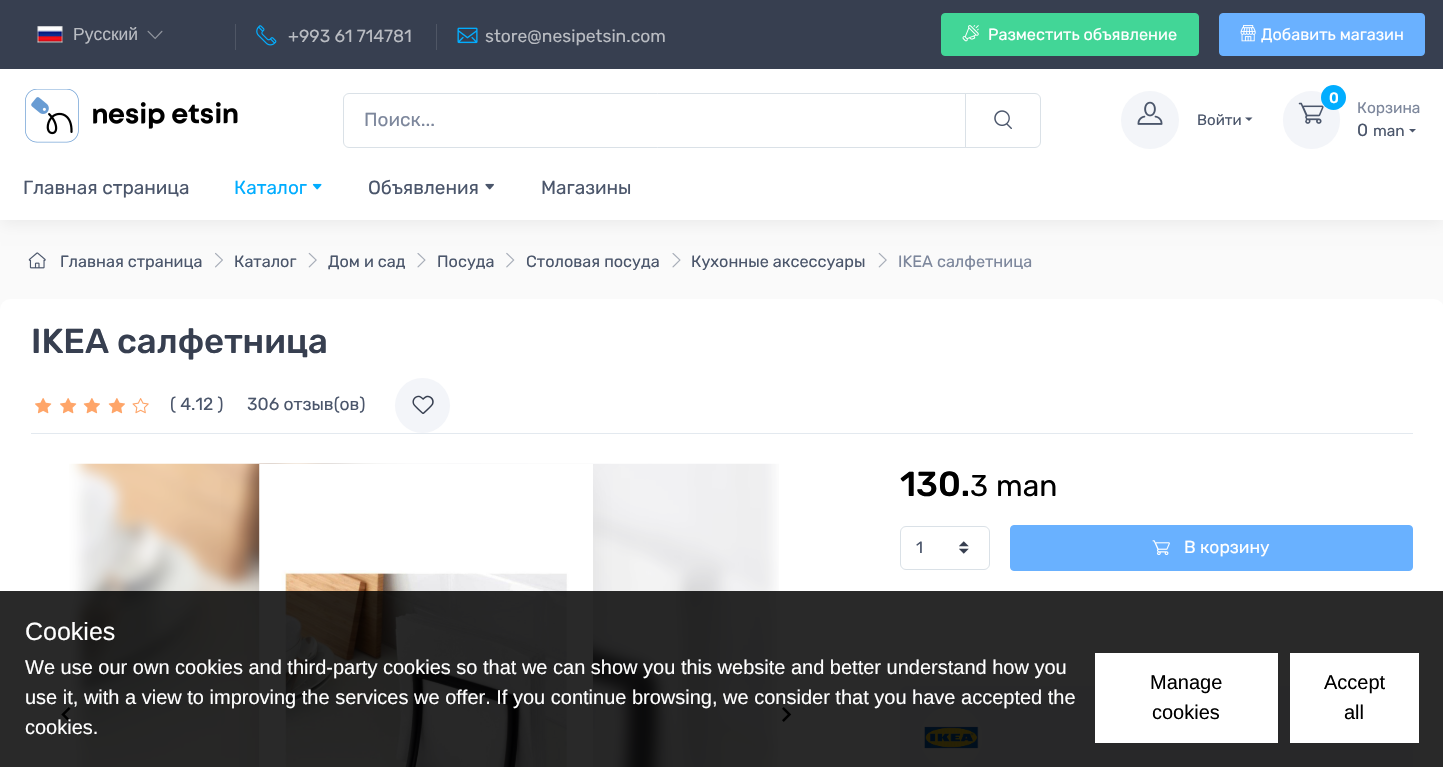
#include "include/core/SkBlurTypes.h"
#include "include/core/SkCanvas.h"
#include "include/core/SkData.h"
#include "include/core/SkFont.h"
#include "include/core/SkFontMgr.h"
#include "include/core/SkImage.h"
#include "include/core/SkMaskFilter.h"
#include "include/core/SkPaint.h"
#include "include/core/SkPathBuilder.h"
#include "include/core/SkTextBlob.h"
#include "include/effects/SkDashPathEffect.h"
#include "include/effects/SkGradientShader.h"
#include "include/utils/SkParsePath.h"

extern sk_sp<SkFontMgr> fontMgr;

void draw(SkCanvas* canvas) {
    SkPaint p;
    p.setAntiAlias(true);
    auto font = [&](const char* family, int weight, float size, bool italic = false) {
        SkFontStyle style(weight, SkFontStyle::kNormal_Width,
            italic ? SkFontStyle::kItalic_Slant : SkFontStyle::kUpright_Slant);
        SkFont result(fontMgr->matchFamilyStyle(family, style), size);
        result.setSubpixel(true);
        return result;
    };
    auto drawPhoto = [&](const char* path, float l, float t, float r, float b) {
        auto image = SkImages::DeferredFromEncodedData(SkData::MakeFromFileName(path));
        canvas->drawImageRect(image, SkRect::MakeLTRB(l, t, r, b), SkSamplingOptions());
    };
    canvas->clear(0xFFFAFAFA);
    p.setColor(0xFF373F50);
    canvas->drawRect(SkRect::MakeLTRB(0, 0, 1443, 69), p);
    drawPhoto("media/1.png", 37, 26, 63, 43);
    auto font1 = font("Liberation Sans", 400, 17.5f);
    p.setColor(0xFFB9BCC2);
    canvas->drawString("Русский", 73, 40, font1, p);
    drawPhoto("media/2.png", 147, 30, 163, 40);
    p.setColor(0xFF4F5665);
    canvas->drawRect(SkRect::MakeLTRB(235, 24, 236, 50), p);
    drawPhoto("media/3.png", 256, 25, 277, 46);
    auto font2 = font("Rubik", 400, 17.5f);
    p.setColor(0xFFB9BCC2);
    canvas->drawString("+993 61 714781", 288, 42, font2, p);
    p.setColor(0xFF4F5665);
    canvas->drawRect(SkRect::MakeLTRB(436, 24, 437, 50), p);
    drawPhoto("media/4.png", 457, 27, 478, 44);
    p.setColor(0xFFB9BCC2);
    canvas->drawString("store@nesipetsin.com", 485, 42, font2, p);
    p.setColor(0xFF42D697);
    canvas->drawRoundRect(SkRect::MakeLTRB(941.5f, 13.5f, 1198.5f, 55.5f), 3.5f, 3.5f, p);
    p.setStyle(SkPaint::kStroke_Style);
    p.setStrokeWidth(1);
    canvas->drawRoundRect(SkRect::MakeLTRB(941.5f, 13.5f, 1198.5f, 55.5f), 3.5f, 3.5f, p);
    drawPhoto("media/5.png", 962, 25, 979, 42);
    auto font3 = font("Rubik", 400, 16.25f);
    p.setStyle(SkPaint::kFill_Style);
    p.setColor(0xFFFFFFFF);
    canvas->drawString("Разместить объявление", 988, 40, font3, p);
    p.setColor(0xFF6AB1FF);
    canvas->drawRoundRect(SkRect::MakeLTRB(1219.5f, 13.5f, 1424.5f, 55.5f), 3.5f, 3.5f, p);
    p.setStyle(SkPaint::kStroke_Style);
    canvas->drawRoundRect(SkRect::MakeLTRB(1219.5f, 13.5f, 1424.5f, 55.5f), 3.5f, 3.5f, p);
    drawPhoto("media/6.png", 1240, 25, 1256, 42);
    p.setStyle(SkPaint::kFill_Style);
    p.setColor(0xFFFFFFFF);
    canvas->drawString("Добавить магазин", 1261, 40, font3, p);
    p.setColor(0x0F000000);
    p.setMaskFilter(SkMaskFilter::MakeBlur(kNormal_SkBlurStyle, 7.5f));
    canvas->drawRect(SkRect::MakeLTRB(1, 158, 1443, 224), p);
    p.setMaskFilter(nullptr);
    p.setColor(0xFFFFFFFF);
    canvas->drawRect(SkRect::MakeLTRB(0, 69, 1443, 220), p);
    drawPhoto("media/7.png", 25, 89, 238, 143);
    p.setStyle(SkPaint::kStroke_Style);
    p.setColor(0xFFDAE1E7);
    canvas->drawPath(SkPathBuilder().moveTo(349, 93.5f).lineTo(965.5f, 93.5f).lineTo(965.5f, 147.5f).lineTo(349, 147.5f).cubicTo(346, 147.5f, 343.5f, 145, 343.5f, 142).lineTo(343.5f, 99).cubicTo(343.5f, 96, 346, 93.5f, 349, 93.5f).close().detach(), p);
    auto font4 = font("Rubik", 400, 19);
    p.setStyle(SkPaint::kFill_Style);
    p.setColor(0xFF7D879C);
    canvas->drawString("Поиск...", 364, 126, font4, p);
    p.setStyle(SkPaint::kStroke_Style);
    p.setColor(0xFFDAE1E7);
    canvas->drawPath(SkPathBuilder().moveTo(965.5f, 93.5f).lineTo(1035, 93.5f).cubicTo(1038, 93.5f, 1040.5f, 96, 1040.5f, 99).lineTo(1040.5f, 142).cubicTo(1040.5f, 145, 1038, 147.5f, 1035, 147.5f).lineTo(965.5f, 147.5f).close().detach(), p);
    drawPhoto("media/8.png", 994, 110, 1012, 129);
    p.setStyle(SkPaint::kFill_Style);
    p.setColor(0xFFF3F5F9);
    canvas->drawCircle(1150, 120, 29, p);
    drawPhoto("media/9.png", 1137, 101, 1163, 125);
    auto font5 = font("Rubik", 400, 15);
    p.setColor(0xFF4B566B);
    canvas->drawString("Войти", 1197, 125, font5, p);
    canvas->drawPath(SkPathBuilder().moveTo(1245, 117.5f).lineTo(1252.5f, 117.5f).lineTo(1249, 121).close().detach(), p);
    p.setColor(0xFFF3F5F9);
    canvas->drawRoundRect(SkRect::MakeLTRB(1283, 91, 1340, 149), 28.5f, 28.5f, p);
    drawPhoto("media/10.png", 1298, 102, 1324, 124);
    p.setColor(0xFF01ADFF);
    canvas->drawCircle(1333.5f, 97.5f, 12.5f, p);
    auto font6 = font("Rubik", 500, 15);
    p.setColor(0xFFFFFFFF);
    canvas->drawString("0", 1329, 103, font6, p);
    auto font7 = font("Rubik", 400, 15.5f);
    p.setColor(0xFF7D879C);
    canvas->drawString("Корзина", 1357, 113, font7, p);
    p.setColor(0xFF4B566B);
    canvas->drawString("0", 1357, 136, font2, p);
    canvas->drawString("man", 1373, 136, font7, p);
    canvas->drawPath(SkPathBuilder().moveTo(1409, 129).lineTo(1416, 129).lineTo(1412.5f, 132.5f).close().detach(), p);
    canvas->drawString("Главная страница", 23, 194, font4, p);
    p.setColor(0xFF01ADFF);
    canvas->drawString("Каталог", 234, 194, font4, p);
    drawPhoto("media/11.png", 312, 183, 322, 190);
    p.setColor(0xFF4B566B);
    canvas->drawString("Объявления", 368, 194, font4, p);
    drawPhoto("media/12.png", 485, 183, 494, 190);
    canvas->drawString("Магазины", 541, 194, font4, p);
    drawPhoto("media/13.png", 28, 252, 46, 269);
    canvas->drawString("Главная страница", 60, 267, font3, p);
    drawPhoto("media/14.png", 215, 252, 223, 268);
    canvas->drawString("Каталог", 234, 267, font3, p);
    drawPhoto("media/15.png", 308, 252, 317, 268);
    canvas->drawString("Дом и сад", 328, 267, font3, p);
    drawPhoto("media/16.png", 417, 253, 426, 268);
    canvas->drawString("Посуда", 437, 267, font3, p);
    drawPhoto("media/17.png", 506, 252, 515, 268);
    canvas->drawString("Столовая посуда", 526, 267, font3, p);
    drawPhoto("media/16.png", 672, 253, 681, 268);
    canvas->drawString("Кухонные аксессуары", 691, 267, font3, p);
    drawPhoto("media/15.png", 878, 252, 887, 268);
    p.setColor(0xFF7D879C);
    canvas->drawString("IKEA салфетница", 898, 267, font3, p);
    p.setColor(0xFFFFFFFF);
    canvas->drawRoundRect(SkRect::MakeLTRB(0, 299, 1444, 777), 10, 10, p);
    auto font8 = font("Rubik", 500, 34.75f);
    p.setColor(0xFF373F50);
    canvas->drawString("IKEA салфетница", 31, 353, font8, p);
    p.setColor(0xFFE3E9EF);
    canvas->drawRect(SkRect::MakeLTRB(31, 433, 1413, 434), p);
    drawPhoto("media/18.png", 35, 398, 52, 414);
    drawPhoto("media/18.png", 60, 398, 77, 414);
    drawPhoto("media/19.png", 83, 398, 100, 414);
    drawPhoto("media/19.png", 108, 398, 125, 414);
    drawPhoto("media/20.png", 132, 398, 149, 414);
    p.setColor(0xFF4B566B);
    canvas->drawString("( 4.12 )", 170, 410, font2, p);
    canvas->drawString("306 отзыв(ов)", 247, 410, font2, p);
    p.setColor(0xFFF3F5F9);
    canvas->drawCircle(422.5f, 405.5f, 27.5f, p);
    drawPhoto("media/21.png", 412, 395, 434, 414);
    drawPhoto("media/23.png", 69, 463, 779, 767);
    canvas->save();
    canvas->clipRect(SkRect::MakeLTRB(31, 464, 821, 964));
    p.setColor(0x1A000000);
    p.setMaskFilter(SkMaskFilter::MakeBlur(kNormal_SkBlurStyle, 15));
    canvas->drawRect(SkRect::MakeLTRB(266, 478, 585, 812), p);
    p.setMaskFilter(nullptr);
    canvas->restore();
    drawPhoto("media/22.png", 259, 464, 593, 767);
    drawPhoto("media/24.png", 61, 707, 71, 722);
    drawPhoto("media/25.png", 782, 707, 792, 722);
    p.setColor(0xFF000000);
    canvas->drawString("130.", 900, 496, font8, p);
    auto font9 = font("Rubik", 400, 30);
    canvas->drawString("3", 970, 496, font9, p);
    canvas->drawString("man", 996, 496, font9, p);
    drawPhoto("media/26.png", 959, 541, 969, 554);
    p.setStyle(SkPaint::kStroke_Style);
    p.setColor(0xFFDAE1E7);
    canvas->drawRoundRect(SkRect::MakeLTRB(900.5f, 526.5f, 989.5f, 569.5f), 5.5f, 5.5f, p);
    p.setStyle(SkPaint::kFill_Style);
    p.setColor(0xFF4B566B);
    canvas->drawString("1", 916, 553, font3, p);
    p.setColor(0xFF69B1FF);
    canvas->drawRoundRect(SkRect::MakeLTRB(1010.5f, 525.5f, 1412.5f, 570.5f), 3.5f, 3.5f, p);
    p.setStyle(SkPaint::kStroke_Style);
    canvas->drawRoundRect(SkRect::MakeLTRB(1010.5f, 525.5f, 1412.5f, 570.5f), 3.5f, 3.5f, p);
    drawPhoto("media/27.png", 1152, 540, 1170, 555);
    p.setStyle(SkPaint::kFill_Style);
    p.setColor(0xFFFFFFFF);
    canvas->drawString("В корзину", 1184, 553, font2, p);
    p.setColor(0xFFF6F9FC);
    canvas->drawRoundRect(SkRect::MakeLTRB(900, 686, 1413, 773), 6, 6, p);
    drawPhoto("media/28.png", 920, 707, 982, 767);
    p.setColor(0xD6000000);
    canvas->drawRect(SkRect::MakeLTRB(0, 591, 1443, 767), p);
    auto font10 = font("Liberation Sans", 400, 25);
    p.setColor(0xFFFFFFFF);
    canvas->drawString("Cookies", 25, 640, font10, p);
    auto font11 = font("Liberation Sans", 400, 20);
    {
        const struct { const char* s; float x, y; } items[] = {
            {"We use our own cookies and third-party cookies so that we can show you this website and better understand how you", 25, 674},
            {"use it, with a view to improving the services we offer. If you continue browsing, we consider that you have accepted the", 25, 704},
            {"cookies.", 25, 734},
        };
        for (auto [s, x, y] : items) {
            canvas->drawString(s, x, y, font11, p);
        }
    }
    canvas->drawRect(SkRect::MakeLTRB(1095, 653, 1278, 743), p);
    p.setColor(0xFF000000);
    canvas->drawString("Manage", 1150, 689, font11, p);
    canvas->drawString("cookies", 1152, 719, font11, p);
    p.setColor(0xFFFFFFFF);
    canvas->drawRect(SkRect::MakeLTRB(1290, 653, 1419, 743), p);
    p.setColor(0xFF000000);
    canvas->drawString("Accept", 1324, 689, font11, p);
    canvas->drawString("all", 1344, 719, font11, p);
}
